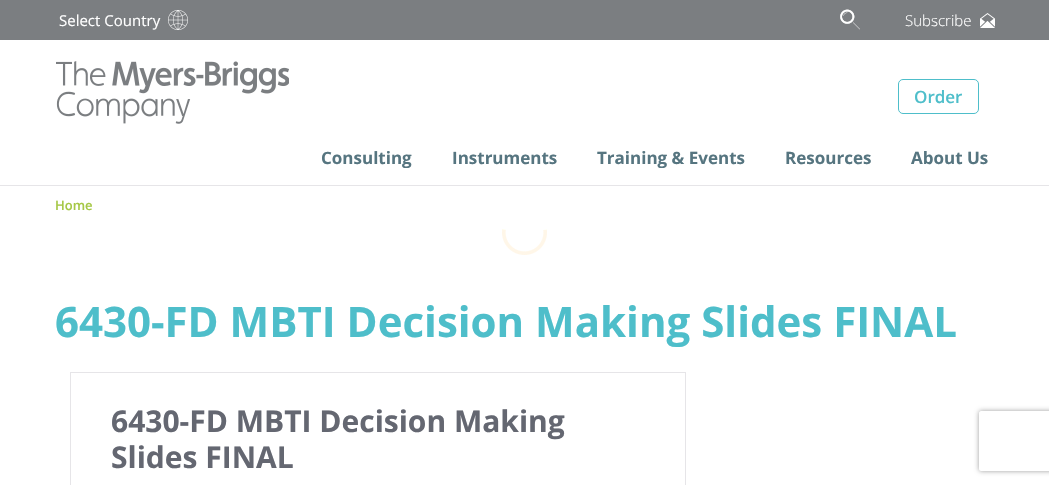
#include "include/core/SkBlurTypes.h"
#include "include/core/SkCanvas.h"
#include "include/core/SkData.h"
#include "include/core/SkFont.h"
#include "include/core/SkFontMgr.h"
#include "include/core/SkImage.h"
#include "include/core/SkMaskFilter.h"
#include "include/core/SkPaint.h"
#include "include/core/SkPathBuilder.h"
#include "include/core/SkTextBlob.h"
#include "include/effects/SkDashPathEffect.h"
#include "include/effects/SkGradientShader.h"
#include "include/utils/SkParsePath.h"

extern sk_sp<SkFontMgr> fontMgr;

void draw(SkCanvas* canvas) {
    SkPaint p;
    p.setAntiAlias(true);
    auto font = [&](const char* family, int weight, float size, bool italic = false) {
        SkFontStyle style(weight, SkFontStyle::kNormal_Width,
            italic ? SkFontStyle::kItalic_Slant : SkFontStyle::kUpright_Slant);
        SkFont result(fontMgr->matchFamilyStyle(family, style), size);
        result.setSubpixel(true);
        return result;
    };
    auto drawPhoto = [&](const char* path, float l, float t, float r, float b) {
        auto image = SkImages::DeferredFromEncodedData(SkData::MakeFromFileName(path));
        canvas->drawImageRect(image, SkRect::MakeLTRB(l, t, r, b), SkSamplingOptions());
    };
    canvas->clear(0xFFFFFFFF);
    p.setColor(0xFF7B7E81);
    canvas->drawRect(SkRect::MakeLTRB(0, 0, 1049, 40), p);
    auto font1 = font("Open Sans", 400, 15);
    p.setColor(0xFFFFFFFF);
    canvas->drawString("Select Country", 59, 26, font1, p);
    drawPhoto("media/1.png", 168, 10, 188, 30);
    drawPhoto("media/2.png", 840, 9, 860, 30);
    auto font2 = font("Open Sans", 300, 15);
    canvas->drawString("Subscribe", 905, 26, font2, p);
    drawPhoto("media/3.png", 980, 13, 995, 28);
    drawPhoto("media/4.png", 56, 61, 289, 124);
    p.setStyle(SkPaint::kStroke_Style);
    p.setStrokeWidth(1);
    p.setColor(0xFF4EBECA);
    canvas->drawRoundRect(SkRect::MakeLTRB(898.5f, 79.5f, 978.5f, 113.5f), 4.5f, 4.5f, p);
    auto font3 = font("Open Sans", 600, 17);
    p.setStyle(SkPaint::kFill_Style);
    canvas->drawString("Order", 914, 103, font3, p);
    auto font4 = font("Open Sans", 700, 17);
    p.setColor(0xFF567580);
    {
        const struct { const char* s; float x, y; } items[] = {
            {"Consulting", 321, 164},
            {"Instruments", 452, 164},
            {"Training & Events", 597, 164},
            {"Resources", 785, 164},
            {"About Us", 911, 164},
        };
        for (auto [s, x, y] : items) {
            canvas->drawString(s, x, y, font4, p);
        }
    }
    p.setColor(0xFFE6E5E8);
    canvas->drawRect(SkRect::MakeLTRB(0, 185, 1049, 186), p);
    auto font5 = font("Open Sans", 600, 13);
    p.setColor(0xFFA6C846);
    canvas->drawString("Home", 55, 210, font5, p);
    auto font6 = font("Open Sans", 700, 42);
    p.setColor(0xFF4EBECA);
    canvas->drawString("6430-FD MBTI Decision Making Slides FINAL", 55, 337, font6, p);
    p.setStyle(SkPaint::kStroke_Style);
    p.setColor(0xFFE6E5E8);
    canvas->drawRect(SkRect::MakeLTRB(70.5f, 372.5f, 685.5f, 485.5f), p);
    auto font7 = font("Open Sans", 700, 30);
    p.setStyle(SkPaint::kFill_Style);
    p.setColor(0xFF646771);
    canvas->drawString("6430-FD MBTI Decision Making", 111, 432, font7, p);
    canvas->drawString("Slides FINAL", 111, 468, font7, p);
    drawPhoto("media/5.png", 502, 229, 547, 255);
    canvas->save();
    canvas->clipPath(SkPathBuilder(SkPathFillType::kEvenOdd).moveTo(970, 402).lineTo(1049, 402).lineTo(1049, 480).lineTo(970, 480).close().moveTo(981, 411).lineTo(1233, 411).cubicTo(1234, 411, 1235, 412, 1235, 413).lineTo(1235, 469).cubicTo(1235, 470, 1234, 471, 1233, 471).lineTo(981, 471).cubicTo(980, 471, 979, 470, 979, 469).lineTo(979, 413).cubicTo(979, 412, 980, 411, 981, 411).close().detach(), true);
    p.setColor(0xFF9D9D9D);
    p.setMaskFilter(SkMaskFilter::MakeBlur(kNormal_SkBlurStyle, 2.5f));
    canvas->drawRoundRect(SkRect::MakeLTRB(979, 411, 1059, 471), 2, 2, p);
    p.setMaskFilter(nullptr);
    canvas->restore();
}
